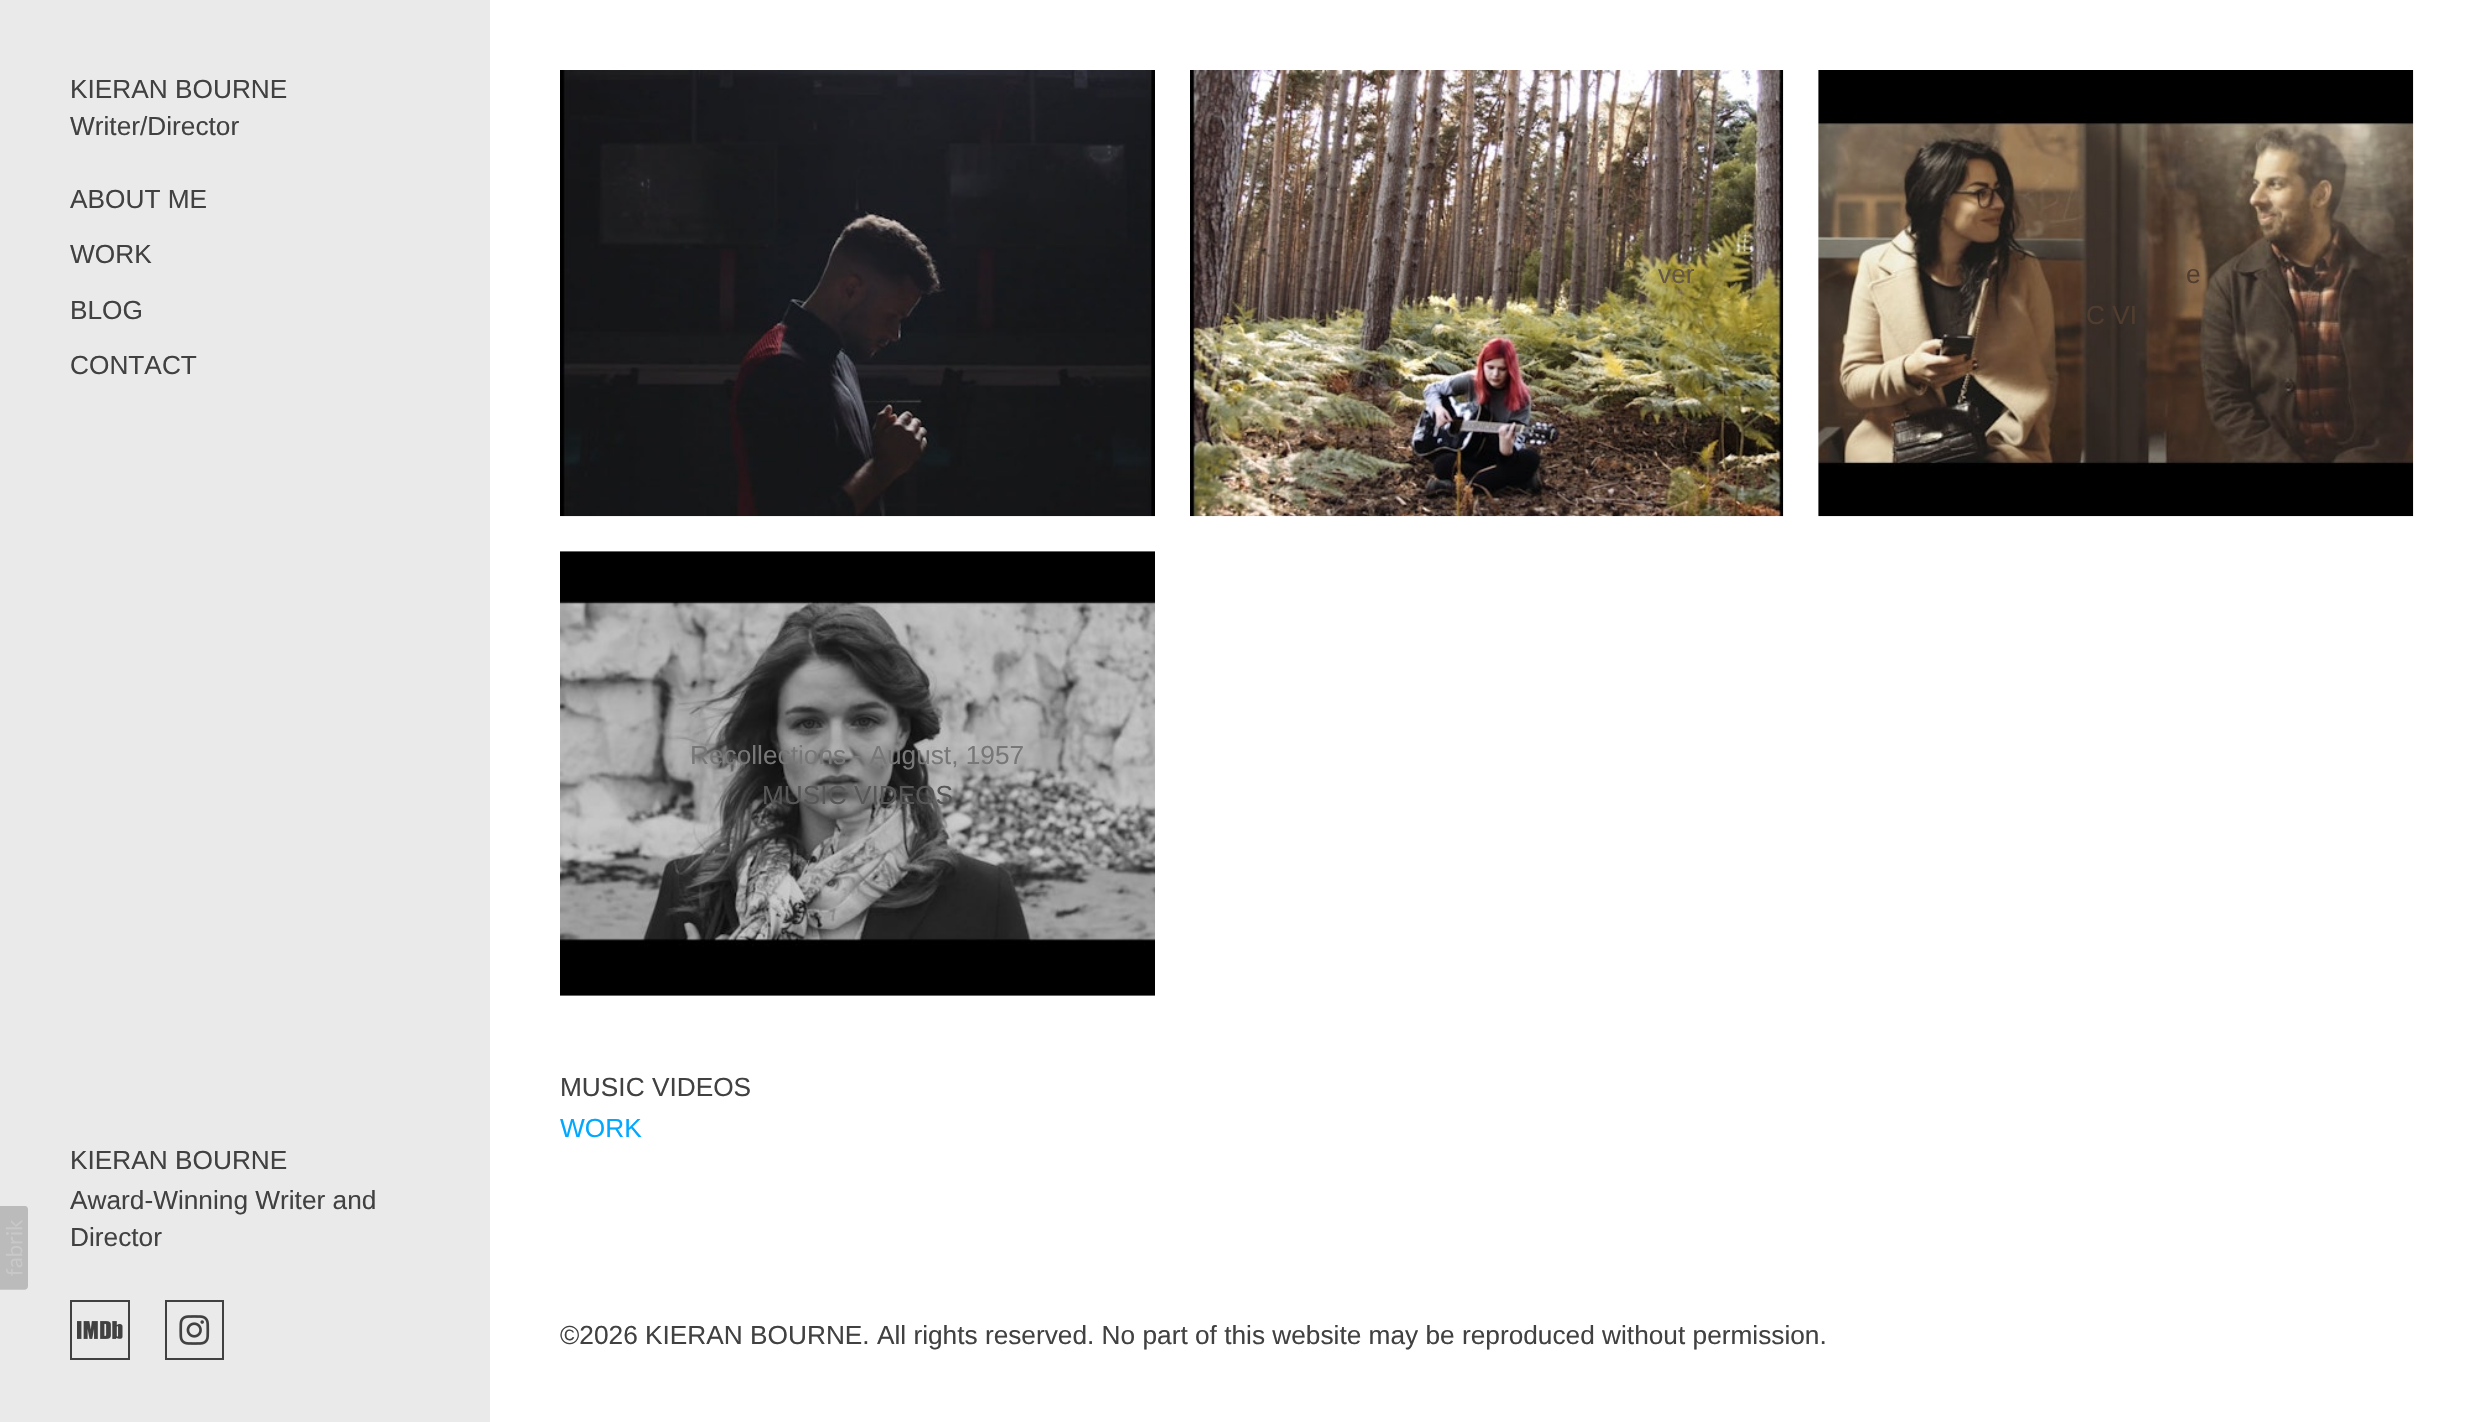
#include "include/core/SkBlurTypes.h"
#include "include/core/SkCanvas.h"
#include "include/core/SkData.h"
#include "include/core/SkFont.h"
#include "include/core/SkFontMgr.h"
#include "include/core/SkImage.h"
#include "include/core/SkMaskFilter.h"
#include "include/core/SkPaint.h"
#include "include/core/SkPathBuilder.h"
#include "include/core/SkTextBlob.h"
#include "include/effects/SkDashPathEffect.h"
#include "include/effects/SkGradientShader.h"
#include "include/utils/SkParsePath.h"

extern sk_sp<SkFontMgr> fontMgr;

void draw(SkCanvas* canvas) {
    SkPaint p;
    p.setAntiAlias(true);
    auto font = [&](const char* family, int weight, float size, bool italic = false) {
        SkFontStyle style(weight, SkFontStyle::kNormal_Width,
            italic ? SkFontStyle::kItalic_Slant : SkFontStyle::kUpright_Slant);
        SkFont result(fontMgr->matchFamilyStyle(family, style), size);
        result.setSubpixel(true);
        return result;
    };
    auto drawPhoto = [&](const char* path, float l, float t, float r, float b) {
        auto image = SkImages::DeferredFromEncodedData(SkData::MakeFromFileName(path));
        canvas->drawImageRect(image, SkRect::MakeLTRB(l, t, r, b), SkSamplingOptions());
    };
    canvas->clear(0xFFFFFFFF);
    p.setColor(0xFFEAEAEA);
    canvas->drawRect(SkRect::MakeLTRB(0, 0, 490, 1422), p);
    auto font1 = font("Liberation Sans", 400, 26.25f);
    p.setColor(0xFF414141);
    {
        const struct { const char* s; float x, y; } items[] = {
            {"KIERAN BOURNE", 70, 98},
            {"Writer/Director", 70, 135},
            {"ABOUT ME", 70, 208},
            {"WORK", 70, 263},
            {"BLOG", 70, 319},
            {"CONTACT", 70, 374},
        };
        for (auto [s, x, y] : items) {
            canvas->drawString(s, x, y, font1, p);
        }
    }
    drawPhoto("media/1.png", 0, 1206, 28, 1290);
    {
        const struct { const char* s; float x, y; } items[] = {
            {"KIERAN BOURNE", 70, 1169},
            {"Award-Winning Writer and", 70, 1209},
            {"Director", 70, 1246},
        };
        for (auto [s, x, y] : items) {
            canvas->drawString(s, x, y, font1, p);
        }
    }
    p.setStyle(SkPaint::kStroke_Style);
    p.setStrokeWidth(2);
    canvas->drawRect(SkRect::MakeLTRB(71, 1301, 129, 1359), p);
    drawPhoto("media/2.png", 77, 1321, 123, 1339);
    canvas->drawRect(SkRect::MakeLTRB(166, 1301, 223, 1359), p);
    drawPhoto("media/3.png", 179, 1315, 210, 1345);
    drawPhoto("media/4.png", 560, 70, 1155, 517);
    drawPhoto("media/5.png", 1190, 70, 1784, 517);
    p.setStyle(SkPaint::kFill_Style);
    p.setColor(0xFF655744);
    canvas->drawString("'", 1612, 283, font1, p);
    canvas->drawString("ver", 1658, 283, font1, p);
    p.setColor(0xFFEAEAEA);
    canvas->drawRect(SkRect::MakeLTRB(1818, 70, 1819, 516), p);
    drawPhoto("media/6.png", 1818, 70, 2414, 517);
    p.setColor(0xFF503D2F);
    canvas->drawString("e", 2186, 283, font1, p);
    canvas->drawString("C VI", 2086, 324, font1, p);
    p.setColor(0xFFEAEAEA);
    canvas->drawRect(SkRect::MakeLTRB(560, 551, 1155, 996), p);
    drawPhoto("media/7.png", 560, 551, 1155, 996);
    p.setColor(0xFF777777);
    canvas->drawString("Recollections - August, 1957", 690, 764, font1, p);
    p.setColor(0xFF575757);
    canvas->drawString("MUSIC VIDEOS", 762, 804, font1, p);
    p.setColor(0xFF414141);
    canvas->drawString("MUSIC VIDEOS", 560, 1096, font1, p);
    p.setColor(0xFF00A8FF);
    canvas->drawString("WORK", 560, 1137, font1, p);
    p.setColor(0xFF414141);
    canvas->drawString("©2026 KIERAN BOURNE. All rights reserved. No part of this website may be reproduced without permission.", 560, 1344, font1, p);
}
